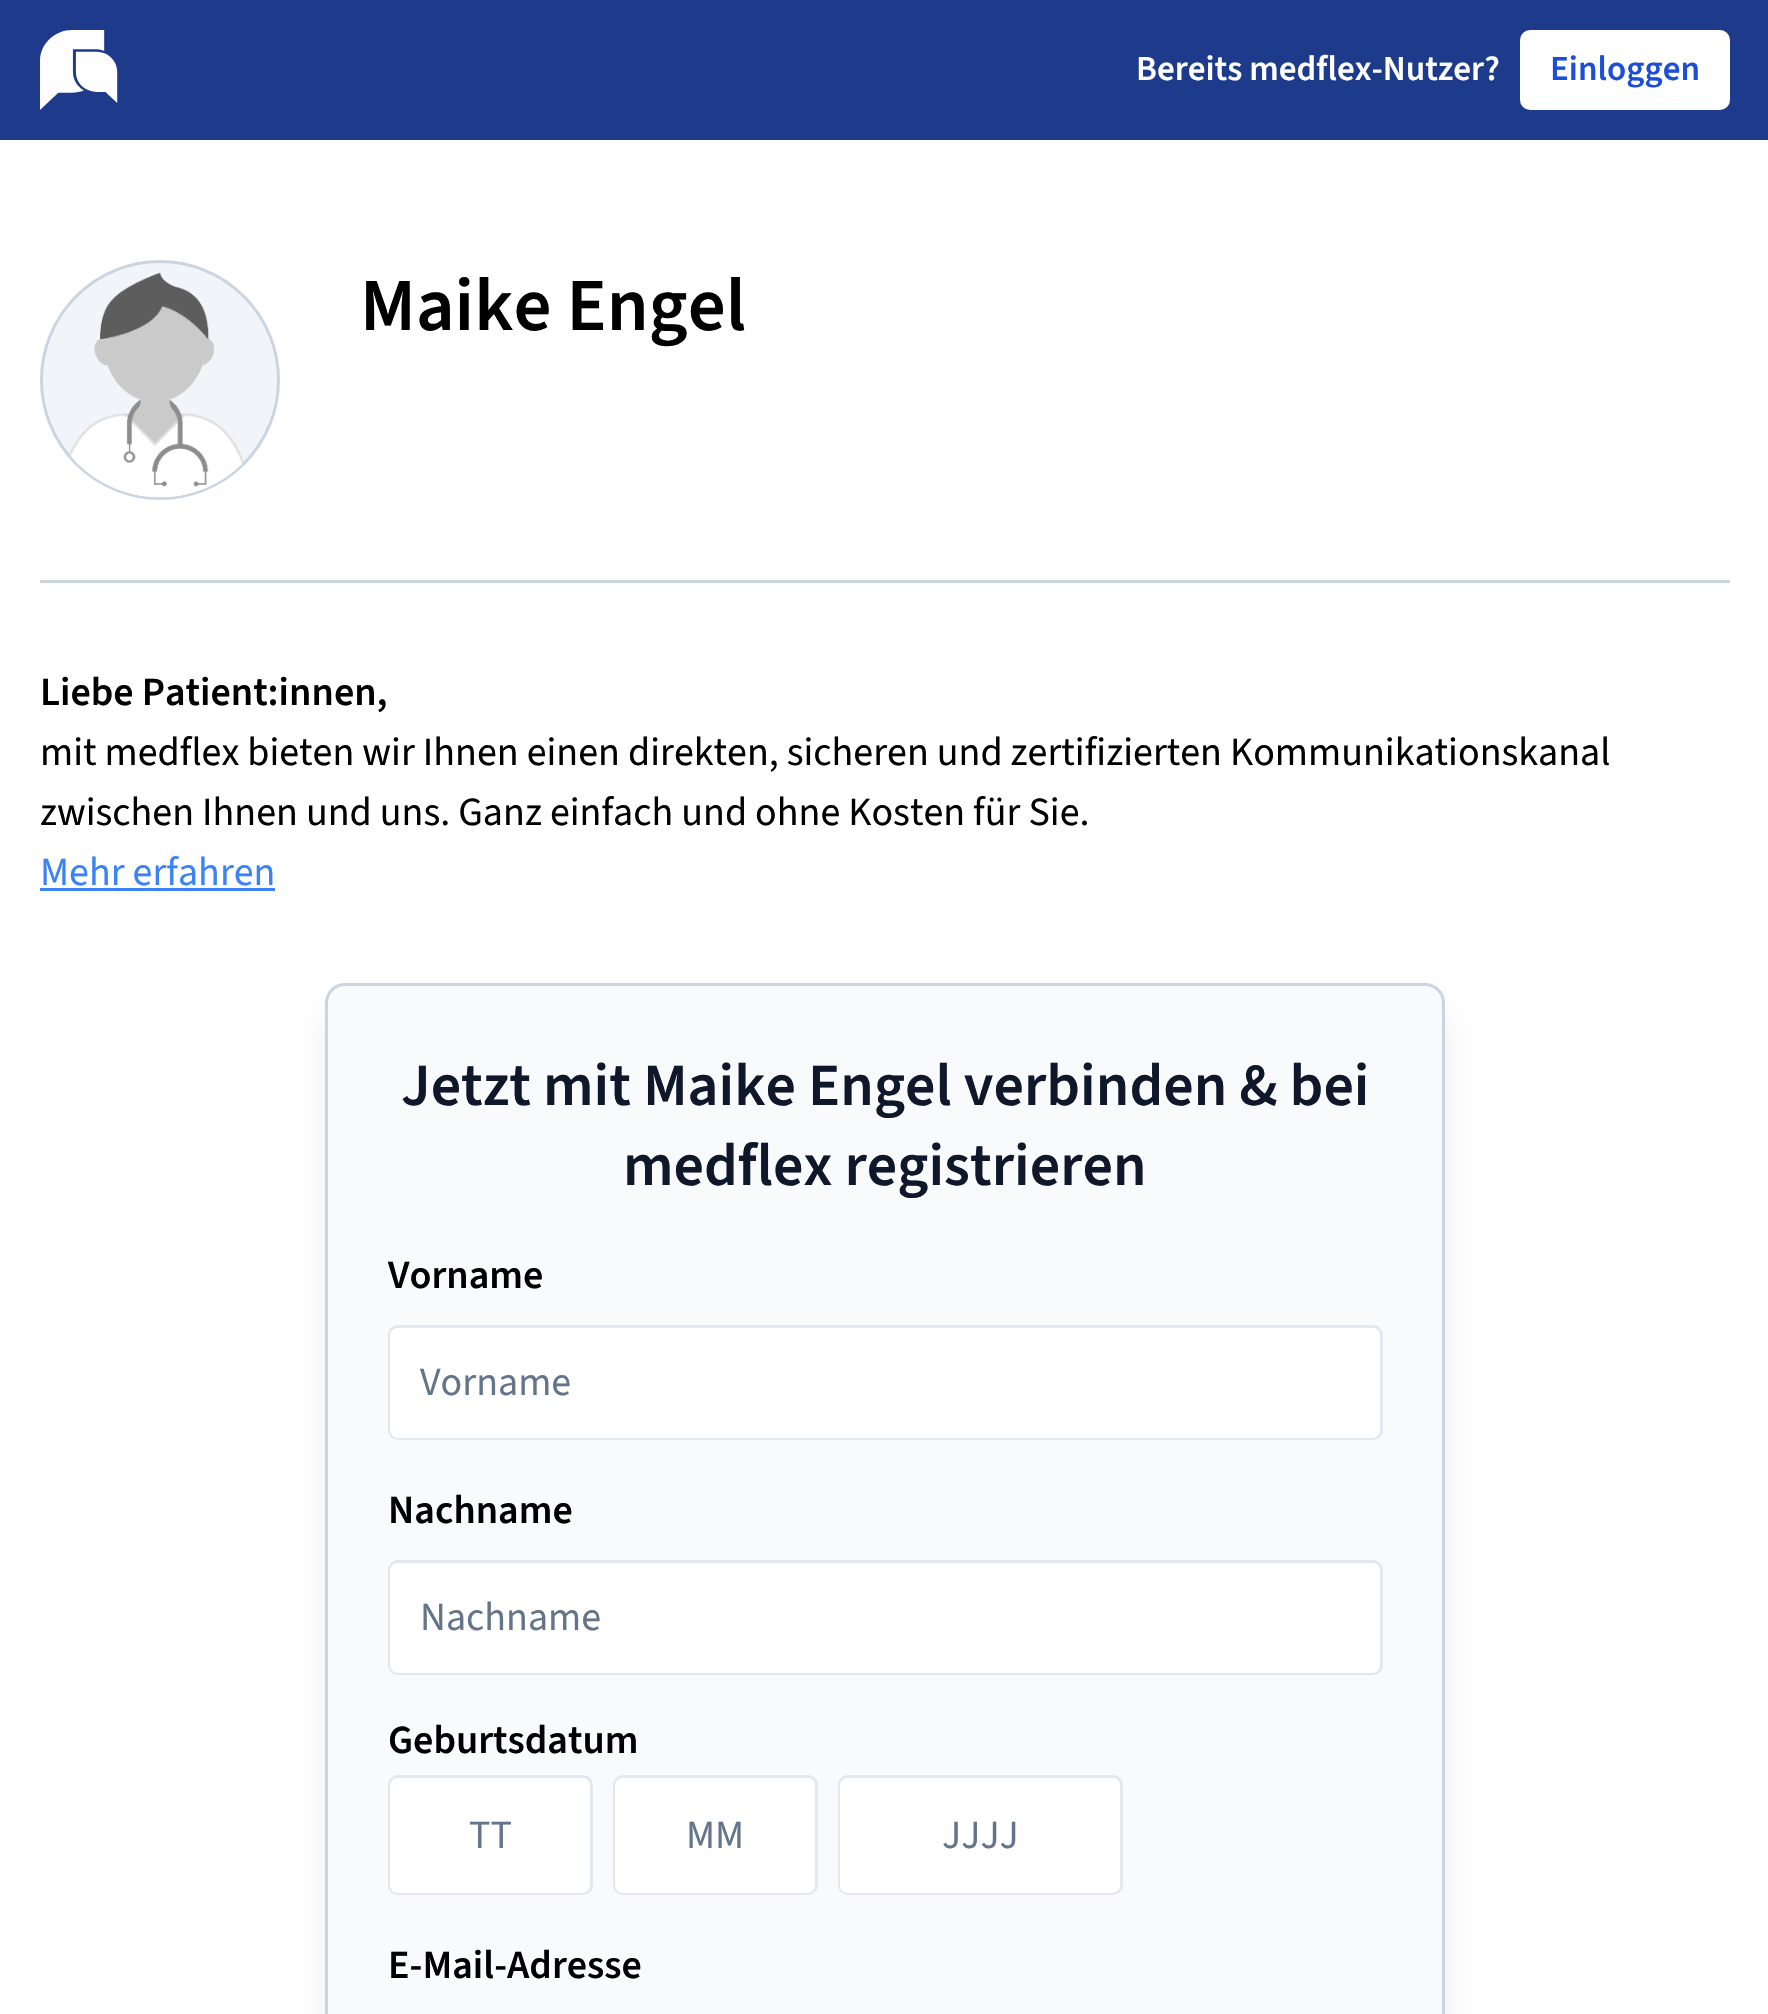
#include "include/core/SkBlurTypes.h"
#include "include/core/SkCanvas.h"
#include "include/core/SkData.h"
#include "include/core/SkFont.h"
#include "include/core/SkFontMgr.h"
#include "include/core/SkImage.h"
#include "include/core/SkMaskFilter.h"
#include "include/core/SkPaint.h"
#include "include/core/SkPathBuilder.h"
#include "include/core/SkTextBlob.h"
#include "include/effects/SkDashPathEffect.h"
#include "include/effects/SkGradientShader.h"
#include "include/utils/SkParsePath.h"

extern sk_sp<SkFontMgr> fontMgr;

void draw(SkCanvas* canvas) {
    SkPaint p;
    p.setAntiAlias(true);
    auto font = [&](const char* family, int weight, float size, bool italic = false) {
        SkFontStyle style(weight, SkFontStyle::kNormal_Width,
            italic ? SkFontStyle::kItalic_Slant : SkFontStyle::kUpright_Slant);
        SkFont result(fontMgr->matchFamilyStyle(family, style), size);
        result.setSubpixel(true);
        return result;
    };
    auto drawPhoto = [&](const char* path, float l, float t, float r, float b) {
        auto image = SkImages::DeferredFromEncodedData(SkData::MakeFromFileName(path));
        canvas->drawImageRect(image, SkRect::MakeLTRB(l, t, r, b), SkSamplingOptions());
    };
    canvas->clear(0xFFFFFFFF);
    p.setColor(0xFF1E3A8A);
    canvas->drawRect(SkRect::MakeLTRB(0, 0, 1768, 140), p);
    drawPhoto("media/1.png", 40, 30, 118, 110);
    auto font1 = font("Source Sans 3", 600, 35);
    p.setColor(0xFFFFFFFF);
    canvas->drawString("Bereits medflex-Nutzer?", 1136, 80, font1, p);
    canvas->drawRoundRect(SkRect::MakeLTRB(1520, 30, 1730, 110), 10, 10, p);
    p.setColor(0xFF1D4ED8);
    canvas->drawString("Einloggen", 1550, 80, font1, p);
    p.setColor(0xFFCBD5E1);
    canvas->drawRect(SkRect::MakeLTRB(40, 580, 1730, 583), p);
    p.setColor(0xFFF1F5F9);
    canvas->drawCircle(160, 380, 118.5f, p);
    p.setStyle(SkPaint::kStroke_Style);
    p.setStrokeWidth(3);
    p.setColor(0xFFCBD5E1);
    canvas->drawCircle(160, 380, 118.5f, p);
    drawPhoto("media/2.png", 69, 272, 244, 498);
    auto font2 = font("Source Sans 3", 600, 75);
    p.setStyle(SkPaint::kFill_Style);
    p.setColor(0xFF000000);
    canvas->drawString("Maike Engel", 360, 330, font2, p);
    auto font3 = font("Source Sans 3", 600, 40);
    canvas->drawString("Liebe Patient:innen,", 40, 705, font3, p);
    auto font4 = font("Source Sans 3", 400, 40);
    canvas->drawString("mit medflex bieten wir Ihnen einen direkten, sicheren und zertifizierten Kommunikationskanal", 40, 765, font4, p);
    canvas->drawString("zwischen Ihnen und uns. Ganz einfach und ohne Kosten für Sie.", 40, 825, font4, p);
    p.setColor(0xFF3B82F6);
    canvas->drawString("Mehr erfahren", 40, 885, font4, p);
    canvas->drawRect(SkRect::MakeLTRB(40, 888, 275, 891), p);
    p.setColor(0x1A000000);
    p.setMaskFilter(SkMaskFilter::MakeBlur(kNormal_SkBlurStyle, 19));
    canvas->drawRoundRect(SkRect::MakeLTRB(333, 1015, 1438, 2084), 13, 13, p);
    p.setMaskFilter(nullptr);
    p.setColor(0xFFF8FAFC);
    canvas->drawRoundRect(SkRect::MakeLTRB(326.5f, 984.5f, 1443.5f, 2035.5f), 18.5f, 18.5f, p);
    p.setStyle(SkPaint::kStroke_Style);
    p.setColor(0xFFCBD5E1);
    canvas->drawRoundRect(SkRect::MakeLTRB(326.5f, 984.5f, 1443.5f, 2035.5f), 18.5f, 18.5f, p);
    auto font5 = font("Source Sans 3", 600, 60);
    p.setStyle(SkPaint::kFill_Style);
    p.setColor(0xFF0F172A);
    canvas->drawString("Jetzt mit Maike Engel verbinden & bei", 401, 1105, font5, p);
    canvas->drawString("medflex registrieren", 623, 1185, font5, p);
    p.setColor(0xFF000000);
    canvas->drawString("Vorname", 388, 1288, font3, p);
    p.setColor(0xFFFFFFFF);
    canvas->drawRoundRect(SkRect::MakeLTRB(389.5f, 1326.5f, 1381.5f, 1438.5f), 8.5f, 8.5f, p);
    p.setStyle(SkPaint::kStroke_Style);
    p.setColor(0xFFE2E8F0);
    canvas->drawRoundRect(SkRect::MakeLTRB(389.5f, 1326.5f, 1381.5f, 1438.5f), 8.5f, 8.5f, p);
    p.setStyle(SkPaint::kFill_Style);
    p.setColor(0xFFFFFFFF);
    canvas->drawRoundRect(SkRect::MakeLTRB(390, 1328, 1380, 1438), 8, 8, p);
    p.setColor(0xFF64748B);
    canvas->drawString("Vorname", 420, 1395, font4, p);
    p.setColor(0xFF000000);
    canvas->drawString("Nachname", 388, 1523, font3, p);
    p.setColor(0xFFFFFFFF);
    canvas->drawRoundRect(SkRect::MakeLTRB(389.5f, 1561.5f, 1381.5f, 1673.5f), 8.5f, 8.5f, p);
    p.setStyle(SkPaint::kStroke_Style);
    p.setColor(0xFFE2E8F0);
    canvas->drawRoundRect(SkRect::MakeLTRB(389.5f, 1561.5f, 1381.5f, 1673.5f), 8.5f, 8.5f, p);
    p.setStyle(SkPaint::kFill_Style);
    p.setColor(0xFFFFFFFF);
    canvas->drawRoundRect(SkRect::MakeLTRB(390, 1563, 1380, 1673), 8, 8, p);
    p.setColor(0xFF64748B);
    canvas->drawString("Nachname", 420, 1630, font4, p);
    p.setColor(0xFF000000);
    canvas->drawString("Geburtsdatum", 388, 1753, font3, p);
    p.setColor(0xFFFFFFFF);
    canvas->drawRoundRect(SkRect::MakeLTRB(389.5f, 1776.5f, 591.5f, 1893.5f), 8.5f, 8.5f, p);
    p.setStyle(SkPaint::kStroke_Style);
    p.setColor(0xFFE2E8F0);
    canvas->drawRoundRect(SkRect::MakeLTRB(389.5f, 1776.5f, 591.5f, 1893.5f), 8.5f, 8.5f, p);
    p.setStyle(SkPaint::kFill_Style);
    p.setColor(0xFFFFFFFF);
    canvas->drawRoundRect(SkRect::MakeLTRB(390, 1778, 590, 1893), 8, 8, p);
    p.setColor(0xFF64748B);
    canvas->drawString("TT", 469, 1848, font4, p);
    p.setColor(0xFFFFFFFF);
    canvas->drawRoundRect(SkRect::MakeLTRB(614.5f, 1776.5f, 816.5f, 1893.5f), 8.5f, 8.5f, p);
    p.setStyle(SkPaint::kStroke_Style);
    p.setColor(0xFFE2E8F0);
    canvas->drawRoundRect(SkRect::MakeLTRB(614.5f, 1776.5f, 816.5f, 1893.5f), 8.5f, 8.5f, p);
    p.setStyle(SkPaint::kFill_Style);
    p.setColor(0xFFFFFFFF);
    canvas->drawRoundRect(SkRect::MakeLTRB(615, 1778, 815, 1893), 8, 8, p);
    p.setColor(0xFF64748B);
    canvas->drawString("MM", 686, 1848, font4, p);
    p.setColor(0xFFFFFFFF);
    canvas->drawRoundRect(SkRect::MakeLTRB(839.5f, 1776.5f, 1121.5f, 1893.5f), 8.5f, 8.5f, p);
    p.setStyle(SkPaint::kStroke_Style);
    p.setColor(0xFFE2E8F0);
    canvas->drawRoundRect(SkRect::MakeLTRB(839.5f, 1776.5f, 1121.5f, 1893.5f), 8.5f, 8.5f, p);
    p.setStyle(SkPaint::kFill_Style);
    p.setColor(0xFFFFFFFF);
    canvas->drawRoundRect(SkRect::MakeLTRB(840, 1778, 1120, 1893), 8, 8, p);
    p.setColor(0xFF64748B);
    canvas->drawString("JJJJ", 942, 1848, font4, p);
    p.setColor(0xFF000000);
    canvas->drawString("E-Mail-Adresse", 388, 1978, font3, p);
}
